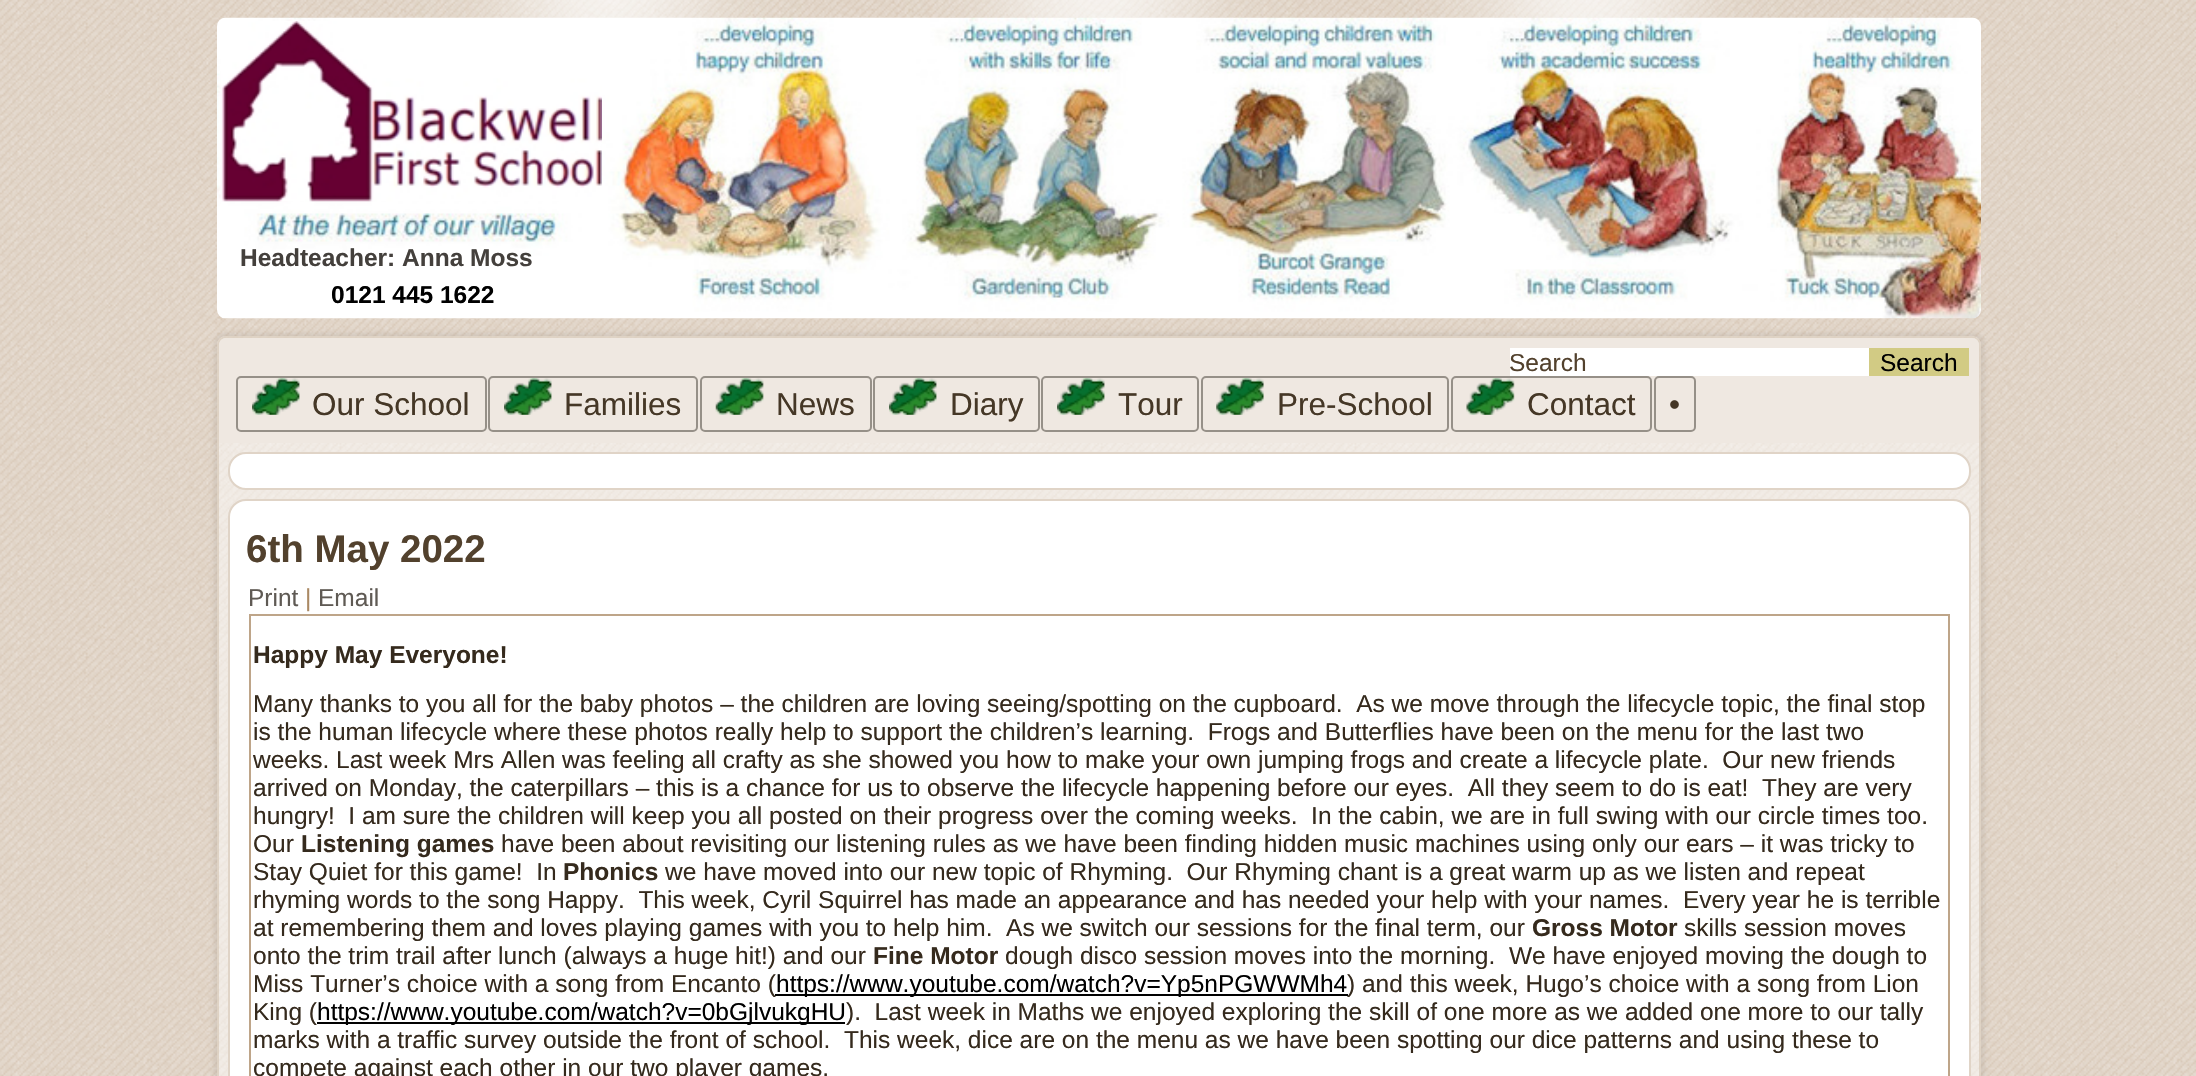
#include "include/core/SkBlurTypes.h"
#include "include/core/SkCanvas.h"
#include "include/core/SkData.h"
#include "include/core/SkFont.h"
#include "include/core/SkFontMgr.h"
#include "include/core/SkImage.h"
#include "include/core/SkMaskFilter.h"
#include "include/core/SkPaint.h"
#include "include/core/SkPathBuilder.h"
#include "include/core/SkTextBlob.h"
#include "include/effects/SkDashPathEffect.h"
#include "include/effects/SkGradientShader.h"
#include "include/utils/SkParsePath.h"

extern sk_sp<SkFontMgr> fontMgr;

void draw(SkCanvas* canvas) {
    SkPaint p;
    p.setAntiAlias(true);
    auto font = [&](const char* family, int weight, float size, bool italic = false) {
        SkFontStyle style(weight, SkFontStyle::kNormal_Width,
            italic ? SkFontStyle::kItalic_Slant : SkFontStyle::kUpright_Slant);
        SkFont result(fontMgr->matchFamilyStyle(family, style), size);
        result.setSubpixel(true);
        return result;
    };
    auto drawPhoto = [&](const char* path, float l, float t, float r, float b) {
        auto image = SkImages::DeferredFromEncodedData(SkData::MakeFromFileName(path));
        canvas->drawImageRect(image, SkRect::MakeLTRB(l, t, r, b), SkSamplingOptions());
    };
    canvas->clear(0xFFE6DCD1);
    drawPhoto("media/1.png", 0, 0, 2196, 1076);
    drawPhoto("media/2.png", 217, 17, 1981, 319);
    auto font1 = font("Liberation Sans", 700, 24.5f);
    p.setColor(0xFF44403C);
    canvas->drawString("Headteacher: Anna Moss", 240, 266, font1, p);
    p.setColor(0xFF000000);
    canvas->drawString("0121 445 1622", 331, 303, font1, p);
    canvas->save();
    canvas->clipPath(SkPathBuilder(SkPathFillType::kEvenOdd).moveTo(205, 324).lineTo(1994, 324).lineTo(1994, 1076).lineTo(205, 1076).close().moveTo(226, 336).lineTo(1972, 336).cubicTo(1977, 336, 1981, 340, 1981, 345).lineTo(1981, 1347).cubicTo(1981, 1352, 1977, 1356, 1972, 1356).lineTo(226, 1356).cubicTo(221, 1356, 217, 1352, 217, 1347).lineTo(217, 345).cubicTo(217, 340, 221, 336, 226, 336).close().detach(), true);
    p.setColor(0x12000000);
    p.setMaskFilter(SkMaskFilter::MakeBlur(kNormal_SkBlurStyle, 2.5f));
    canvas->drawRoundRect(SkRect::MakeLTRB(214, 333, 1985, 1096), 12, 12, p);
    p.setMaskFilter(nullptr);
    canvas->restore();
    p.setColor(0x80FFFFFF);
    canvas->drawRoundRect(SkRect::MakeLTRB(217, 336, 1981, 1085), 9, 9, p);
    p.setStyle(SkPaint::kStroke_Style);
    p.setStrokeWidth(2);
    p.setColor(0x80CEBBA6);
    canvas->drawRoundRect(SkRect::MakeLTRB(218, 337, 1980, 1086), 8, 8, p);
    p.setStyle(SkPaint::kFill_Style);
    p.setColor(0xFFEFE8E1);
    canvas->drawPath(SkPathBuilder().moveTo(226, 338).lineTo(1972, 338).cubicTo(1976, 338, 1979, 341, 1979, 345).lineTo(1979, 443).lineTo(219, 443).lineTo(219, 345).cubicTo(219, 341, 222, 338, 226, 338).close().detach(), p);
    p.setColor(0xFFFFFFFF);
    canvas->drawRect(SkRect::MakeLTRB(1510, 348, 1869, 376), p);
    auto font2 = font("Liberation Sans", 400, 24.5f);
    p.setColor(0xFF52412D);
    canvas->drawString("Search", 1509, 371, font2, p);
    p.setColor(0xFFD2CB84);
    canvas->drawRect(SkRect::MakeLTRB(1869, 348, 1969, 376), p);
    p.setColor(0xFF000000);
    canvas->drawString("Search", 1880, 371, font2, p);
    p.setStyle(SkPaint::kStroke_Style);
    p.setColor(0xFF969088);
    canvas->drawRoundRect(SkRect::MakeLTRB(237, 377, 486, 431), 4, 4, p);
    drawPhoto("media/3.png", 252, 378, 300, 415);
    auto font3 = font("Liberation Sans", 400, 31.5f);
    p.setStyle(SkPaint::kFill_Style);
    p.setColor(0xFF453726);
    canvas->drawString("Our School", 312, 415, font3, p);
    p.setStyle(SkPaint::kStroke_Style);
    p.setColor(0xFF969088);
    canvas->drawRoundRect(SkRect::MakeLTRB(489, 377, 697, 431), 4, 4, p);
    drawPhoto("media/3.png", 504, 378, 552, 415);
    p.setStyle(SkPaint::kFill_Style);
    p.setColor(0xFF453726);
    canvas->drawString("Families", 564, 415, font3, p);
    p.setStyle(SkPaint::kStroke_Style);
    p.setColor(0xFF969088);
    canvas->drawRoundRect(SkRect::MakeLTRB(701, 377, 871, 431), 4, 4, p);
    drawPhoto("media/4.png", 715, 378, 764, 415);
    p.setStyle(SkPaint::kFill_Style);
    p.setColor(0xFF453726);
    canvas->drawString("News", 776, 415, font3, p);
    p.setStyle(SkPaint::kStroke_Style);
    p.setColor(0xFF969088);
    canvas->drawRoundRect(SkRect::MakeLTRB(874, 377, 1039, 431), 4, 4, p);
    drawPhoto("media/5.png", 889, 378, 937, 415);
    p.setStyle(SkPaint::kFill_Style);
    p.setColor(0xFF453726);
    canvas->drawString("Diary", 950, 415, font3, p);
    p.setStyle(SkPaint::kStroke_Style);
    p.setColor(0xFF969088);
    canvas->drawRoundRect(SkRect::MakeLTRB(1042, 377, 1198, 431), 4, 4, p);
    drawPhoto("media/3.png", 1057, 378, 1105, 415);
    p.setStyle(SkPaint::kFill_Style);
    p.setColor(0xFF453726);
    canvas->drawString("Tour", 1118, 415, font3, p);
    p.setStyle(SkPaint::kStroke_Style);
    p.setColor(0xFF969088);
    canvas->drawRoundRect(SkRect::MakeLTRB(1202, 377, 1448, 431), 4, 4, p);
    drawPhoto("media/6.png", 1216, 378, 1264, 415);
    p.setStyle(SkPaint::kFill_Style);
    p.setColor(0xFF453726);
    canvas->drawString("Pre-School", 1277, 415, font3, p);
    p.setStyle(SkPaint::kStroke_Style);
    p.setColor(0xFF969088);
    canvas->drawRoundRect(SkRect::MakeLTRB(1452, 377, 1651, 431), 4, 4, p);
    drawPhoto("media/7.png", 1466, 378, 1515, 415);
    p.setStyle(SkPaint::kFill_Style);
    p.setColor(0xFF453726);
    canvas->drawString("Contact", 1527, 415, font3, p);
    p.setStyle(SkPaint::kStroke_Style);
    p.setColor(0xFF969088);
    canvas->drawRoundRect(SkRect::MakeLTRB(1655, 377, 1695, 431), 4, 4, p);
    p.setStyle(SkPaint::kFill_Style);
    p.setColor(0xFF453726);
    canvas->drawString("•", 1669, 415, font3, p);
    p.setColor(0xFFFFFFFF);
    canvas->drawRoundRect(SkRect::MakeLTRB(229, 453, 1970, 489), 17, 17, p);
    p.setStyle(SkPaint::kStroke_Style);
    p.setColor(0xFFE0D4C7);
    canvas->drawRoundRect(SkRect::MakeLTRB(229, 453, 1970, 489), 17, 17, p);
    p.setStyle(SkPaint::kFill_Style);
    p.setColor(0xFFFFFFFF);
    canvas->drawRoundRect(SkRect::MakeLTRB(229, 500, 1970, 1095), 17, 17, p);
    p.setStyle(SkPaint::kStroke_Style);
    p.setColor(0xFFE0D4C7);
    canvas->drawRoundRect(SkRect::MakeLTRB(229, 500, 1970, 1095), 17, 17, p);
    auto font4 = font("Liberation Sans", 700, 38.5f);
    p.setStyle(SkPaint::kFill_Style);
    p.setColor(0xFF52412D);
    canvas->drawString("6th May 2022", 246, 562, font4, p);
    p.setColor(0xFF5F5A54);
    canvas->drawString("Print", 248, 606, font2, p);
    p.setColor(0xFFAA8964);
    canvas->drawString("|", 305, 606, font2, p);
    p.setColor(0xFF5F5A54);
    canvas->drawString("Email", 318, 606, font2, p);
    {
        const struct { float l, t, r, b; SkColor color; } items[] = {
            {249, 614, 1950, 616, 0xFFBEA589},
            {1948, 614, 1950, 1076, 0xFFBEA589},
            {249, 614, 251, 1076, 0xFFBEA589},
        };
        for (auto [l, t, r, b, color] : items) {
            p.setColor(color);
            canvas->drawRect(SkRect::MakeLTRB(l, t, r, b), p);
        }
    }
    p.setColor(0xFF352A1D);
    canvas->drawString("Happy May Everyone!", 253, 663, font1, p);
    {
        const struct { const char* s; float x, y; } items[] = {
            {"Many thanks to you all for the baby photos – the children are loving seeing/spotting on the cupboard.  As we move through the lifecycle topic, the final stop", 253, 712},
            {"is the human lifecycle where these photos really help to support the children’s learning.  Frogs and Butterflies have been on the menu for the last two", 253, 740},
            {"weeks. Last week Mrs Allen was feeling all crafty as she showed you how to make your own jumping frogs and create a lifecycle plate.  Our new friends", 253, 768},
            {"arrived on Monday, the caterpillars – this is a chance for us to observe the lifecycle happening before our eyes.  All they seem to do is eat!  They are very", 253, 796},
            {"hungry!  I am sure the children will keep you all posted on their progress over the coming weeks.  In the cabin, we are in full swing with our circle times too.", 253, 824},
            {"Our", 253, 852},
        };
        for (auto [s, x, y] : items) {
            canvas->drawString(s, x, y, font2, p);
        }
    }
    canvas->drawString("Listening games", 301, 852, font1, p);
    canvas->drawString("have been about revisiting our listening rules as we have been finding hidden music machines using only our ears – it was tricky to", 501, 852, font2, p);
    canvas->drawString("Stay Quiet for this game!  In", 253, 880, font2, p);
    canvas->drawString("Phonics", 563, 880, font1, p);
    {
        const struct { const char* s; float x, y; } items[] = {
            {"we have moved into our new topic of Rhyming.  Our Rhyming chant is a great warm up as we listen and repeat", 665, 880},
            {"rhyming words to the song Happy.  This week, Cyril Squirrel has made an appearance and has needed your help with your names.  Every year he is terrible", 253, 908},
            {"at remembering them and loves playing games with you to help him.  As we switch our sessions for the final term, our", 253, 936},
        };
        for (auto [s, x, y] : items) {
            canvas->drawString(s, x, y, font2, p);
        }
    }
    canvas->drawString("Gross Motor", 1532, 936, font1, p);
    canvas->drawString("skills session moves", 1684, 936, font2, p);
    canvas->drawString("onto the trim trail after lunch (always a huge hit!) and our", 253, 964, font2, p);
    canvas->drawString("Fine Motor", 873, 964, font1, p);
    canvas->drawString("dough disco session moves into the morning.  We have enjoyed moving the dough to", 1005, 964, font2, p);
    canvas->drawString("Miss Turner’s choice with a song from Encanto (", 253, 992, font2, p);
    p.setColor(0xFF000000);
    canvas->drawRect(SkRect::MakeLTRB(775, 994, 1348, 996), p);
    canvas->drawString("https://www.youtube.com/watch?v=Yp5nPGWWMh4", 776, 992, font2, p);
    p.setColor(0xFF352A1D);
    canvas->drawString(") and this week, Hugo’s choice with a song from Lion", 1347, 992, font2, p);
    canvas->drawString("King (", 253, 1020, font2, p);
    p.setColor(0xFF000000);
    canvas->drawRect(SkRect::MakeLTRB(317, 1022, 845, 1024), p);
    canvas->drawString("https://www.youtube.com/watch?v=0bGjlvukgHU", 317, 1020, font2, p);
    p.setColor(0xFF352A1D);
    {
        const struct { const char* s; float x, y; } items[] = {
            {").  Last week in Maths we enjoyed exploring the skill of one more as we added one more to our tally", 846, 1020},
            {"marks with a traffic survey outside the front of school.  This week, dice are on the menu as we have been spotting our dice patterns and using these to", 253, 1048},
            {"compete against each other in our two player games.", 253, 1076},
        };
        for (auto [s, x, y] : items) {
            canvas->drawString(s, x, y, font2, p);
        }
    }
}
